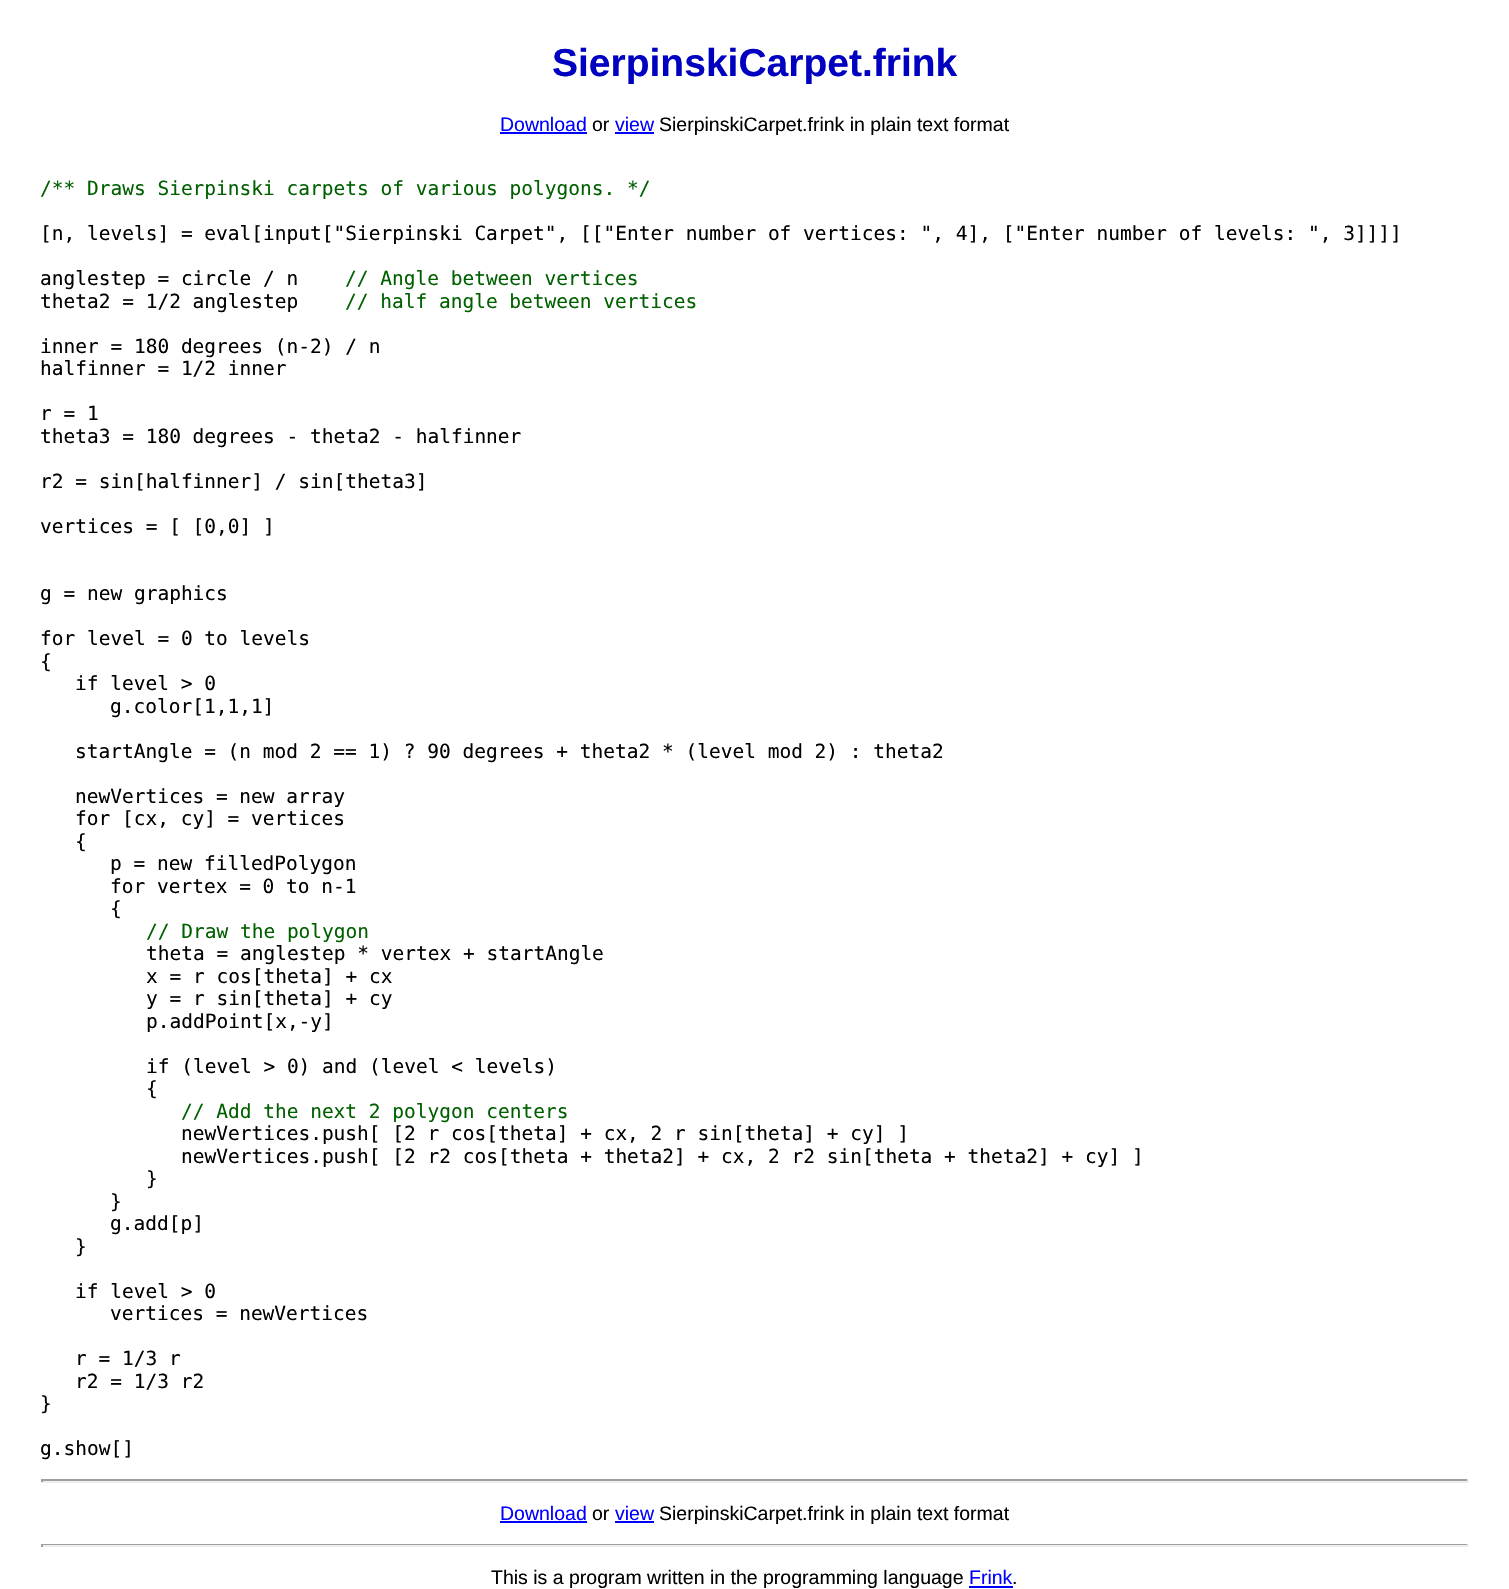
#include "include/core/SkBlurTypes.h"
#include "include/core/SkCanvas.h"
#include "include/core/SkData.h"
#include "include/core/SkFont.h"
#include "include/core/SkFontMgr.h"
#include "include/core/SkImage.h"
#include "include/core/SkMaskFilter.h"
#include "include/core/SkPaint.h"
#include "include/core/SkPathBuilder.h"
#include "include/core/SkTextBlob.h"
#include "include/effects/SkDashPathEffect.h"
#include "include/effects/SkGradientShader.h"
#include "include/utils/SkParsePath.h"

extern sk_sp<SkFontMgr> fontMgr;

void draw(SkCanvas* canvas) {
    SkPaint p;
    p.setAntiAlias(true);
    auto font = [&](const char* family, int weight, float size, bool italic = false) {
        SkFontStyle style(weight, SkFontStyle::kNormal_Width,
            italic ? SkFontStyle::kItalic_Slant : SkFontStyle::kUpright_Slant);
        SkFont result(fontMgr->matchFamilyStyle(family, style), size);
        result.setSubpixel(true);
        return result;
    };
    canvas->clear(0xFFFFFFFF);
    auto font1 = font("Liberation Sans", 700, 39);
    p.setColor(0xFF0000C0);
    canvas->drawString("SierpinskiCarpet.frink", 552, 76, font1, p);
    auto font2 = font("Liberation Sans", 400, 19.5f);
    p.setColor(0xFF0000FF);
    canvas->drawString("Download", 500, 131, font2, p);
    canvas->drawRect(SkRect::MakeLTRB(500, 132, 587, 134), p);
    p.setColor(0xFF000000);
    canvas->drawString("or", 592, 131, font2, p);
    p.setColor(0xFF0000FF);
    canvas->drawString("view", 615, 131, font2, p);
    canvas->drawRect(SkRect::MakeLTRB(615, 132, 654, 134), p);
    p.setColor(0xFF000000);
    canvas->drawString("SierpinskiCarpet.frink in plain text format", 659, 131, font2, p);
    auto font3 = font("DejaVu Sans Mono", 400, 19.5f);
    p.setColor(0xFF006000);
    canvas->drawString("/** Draws Sierpinski carpets of various polygons. */", 40, 195, font3, p);
    p.setColor(0xFF000000);
    canvas->drawString("[n, levels] = eval[input[\"Sierpinski Carpet\", [[\"Enter number of vertices: \", 4], [\"Enter number of levels: \", 3]]]]", 40, 240, font3, p);
    canvas->drawString("anglestep = circle / n", 40, 285, font3, p);
    p.setColor(0xFF006000);
    canvas->drawString("// Angle between vertices", 345, 285, font3, p);
    p.setColor(0xFF000000);
    canvas->drawString("theta2 = 1/2 anglestep", 40, 308, font3, p);
    p.setColor(0xFF006000);
    canvas->drawString("// half angle between vertices", 345, 308, font3, p);
    p.setColor(0xFF000000);
    {
        const struct { const char* s; float x, y; } items[] = {
            {"inner = 180 degrees (n-2) / n", 40, 353},
            {"halfinner = 1/2 inner", 40, 375},
            {"r = 1", 40, 420},
            {"theta3 = 180 degrees - theta2 - halfinner", 40, 443},
            {"r2 = sin[halfinner] / sin[theta3]", 40, 488},
            {"vertices = [ [0,0] ]", 40, 533},
            {"g = new graphics", 40, 600},
            {"for level = 0 to levels", 40, 645},
            {"{", 40, 668},
            {"if level > 0", 75, 690},
            {"g.color[1,1,1]", 110, 713},
            {"startAngle = (n mod 2 == 1) ? 90 degrees + theta2 * (level mod 2) : theta2", 75, 758},
            {"newVertices = new array", 75, 803},
            {"for [cx, cy] = vertices", 75, 825},
            {"{", 75, 848},
            {"p = new filledPolygon", 110, 870},
            {"for vertex = 0 to n-1", 110, 893},
            {"{", 110, 915},
        };
        for (auto [s, x, y] : items) {
            canvas->drawString(s, x, y, font3, p);
        }
    }
    p.setColor(0xFF006000);
    canvas->drawString("// Draw the polygon", 146, 938, font3, p);
    p.setColor(0xFF000000);
    {
        const struct { const char* s; float x, y; } items[] = {
            {"theta = anglestep * vertex + startAngle", 146, 960},
            {"x = r cos[theta] + cx", 146, 983},
            {"y = r sin[theta] + cy", 146, 1005},
            {"p.addPoint[x,-y]", 146, 1028},
            {"if (level > 0) and (level < levels)", 146, 1073},
            {"{", 146, 1095},
        };
        for (auto [s, x, y] : items) {
            canvas->drawString(s, x, y, font3, p);
        }
    }
    p.setColor(0xFF006000);
    canvas->drawString("// Add the next 2 polygon centers", 181, 1118, font3, p);
    p.setColor(0xFF000000);
    {
        const struct { const char* s; float x, y; } items[] = {
            {"newVertices.push[ [2 r cos[theta] + cx, 2 r sin[theta] + cy] ]", 181, 1140},
            {"newVertices.push[ [2 r2 cos[theta + theta2] + cx, 2 r2 sin[theta + theta2] + cy] ]", 181, 1163},
            {"}", 146, 1185},
            {"}", 110, 1208},
            {"g.add[p]", 110, 1230},
            {"}", 75, 1253},
            {"if level > 0", 75, 1298},
            {"vertices = newVertices", 110, 1320},
            {"r = 1/3 r", 75, 1365},
            {"r2 = 1/3 r2", 75, 1388},
            {"}", 40, 1410},
            {"g.show[]", 40, 1455},
        };
        for (auto [s, x, y] : items) {
            canvas->drawString(s, x, y, font3, p);
        }
    }
    {
        const struct { float l, t, r, b; SkColor color; } items[] = {
            {41, 1479, 1469, 1481, 0xFF9F9F9F},
            {1467, 1479, 1469, 1482, 0xFFEEEEEE},
            {41, 1481, 1469, 1483, 0xFFEEEEEE},
            {41, 1479, 43, 1482, 0xFF9F9F9F},
        };
        for (auto [l, t, r, b, color] : items) {
            p.setColor(color);
            canvas->drawRect(SkRect::MakeLTRB(l, t, r, b), p);
        }
    }
    p.setColor(0xFF0000FF);
    canvas->drawString("Download", 500, 1520, font2, p);
    canvas->drawRect(SkRect::MakeLTRB(500, 1521, 587, 1523), p);
    p.setColor(0xFF000000);
    canvas->drawString("or", 592, 1520, font2, p);
    p.setColor(0xFF0000FF);
    canvas->drawString("view", 615, 1520, font2, p);
    canvas->drawRect(SkRect::MakeLTRB(615, 1521, 654, 1523), p);
    p.setColor(0xFF000000);
    canvas->drawString("SierpinskiCarpet.frink in plain text format", 659, 1520, font2, p);
    {
        const struct { float l, t, r, b; SkColor color; } items[] = {
            {41, 1544, 1469, 1545, 0xFF9F9F9F},
            {1467, 1544, 1469, 1547, 0xFFEEEEEE},
            {41, 1545, 1469, 1547, 0xFFEEEEEE},
            {41, 1544, 43, 1547, 0xFF9F9F9F},
        };
        for (auto [l, t, r, b, color] : items) {
            p.setColor(color);
            canvas->drawRect(SkRect::MakeLTRB(l, t, r, b), p);
        }
    }
    p.setColor(0xFF000000);
    canvas->drawString("This is a program written in the programming language", 491, 1584, font2, p);
    p.setColor(0xFF0000FF);
    canvas->drawString("Frink", 969, 1584, font2, p);
    canvas->drawRect(SkRect::MakeLTRB(969, 1586, 1013, 1588), p);
    p.setColor(0xFF000000);
    canvas->drawString(".", 1012, 1584, font2, p);
}
